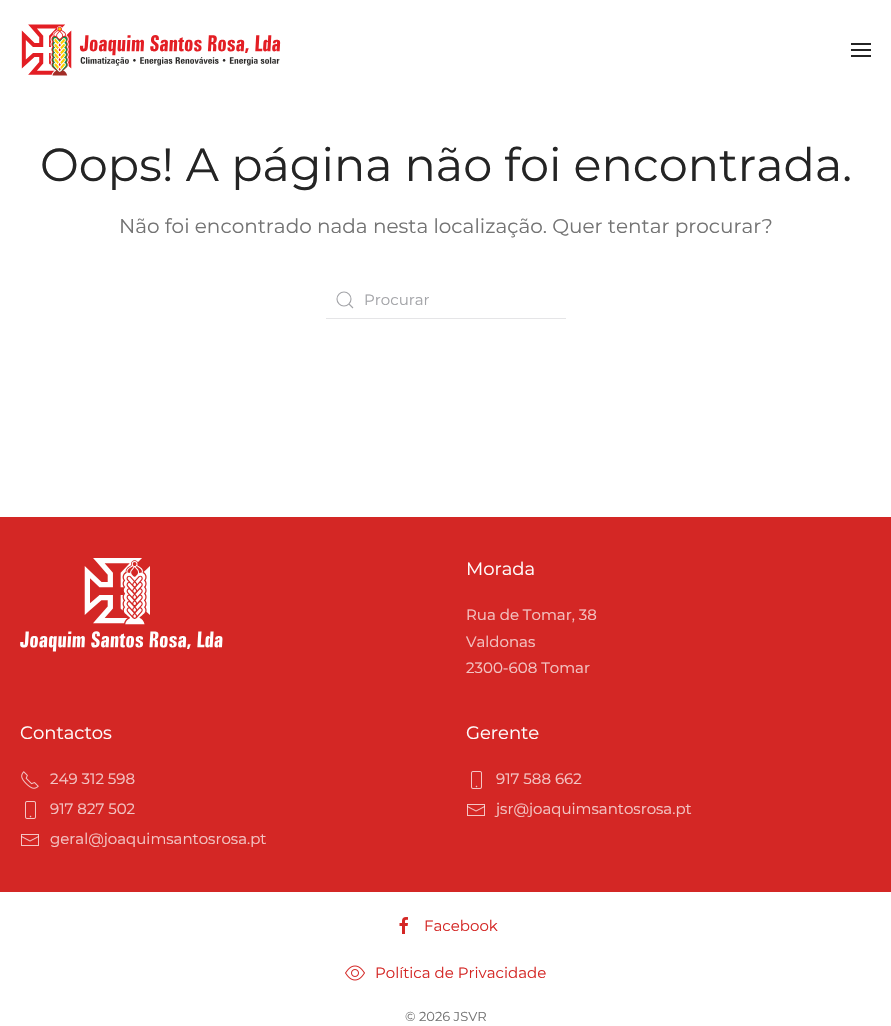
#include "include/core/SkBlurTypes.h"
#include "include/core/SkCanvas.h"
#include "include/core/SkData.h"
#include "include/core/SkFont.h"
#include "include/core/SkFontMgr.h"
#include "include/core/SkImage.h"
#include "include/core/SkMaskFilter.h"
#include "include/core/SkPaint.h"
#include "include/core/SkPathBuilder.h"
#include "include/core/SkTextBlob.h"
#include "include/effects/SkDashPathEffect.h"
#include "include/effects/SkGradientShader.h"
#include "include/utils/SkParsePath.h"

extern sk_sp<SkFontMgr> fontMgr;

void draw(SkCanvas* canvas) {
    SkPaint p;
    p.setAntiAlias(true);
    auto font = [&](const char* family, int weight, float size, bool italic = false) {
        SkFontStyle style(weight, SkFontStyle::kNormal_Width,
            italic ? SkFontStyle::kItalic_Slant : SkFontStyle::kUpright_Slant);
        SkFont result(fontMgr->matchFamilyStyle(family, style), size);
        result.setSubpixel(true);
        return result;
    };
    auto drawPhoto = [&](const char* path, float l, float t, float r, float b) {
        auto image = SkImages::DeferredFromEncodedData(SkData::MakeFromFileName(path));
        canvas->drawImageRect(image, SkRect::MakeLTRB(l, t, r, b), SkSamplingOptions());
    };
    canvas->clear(0xFFFFFFFF);
    drawPhoto("media/1.png", 21, 24, 281, 76);
    {
        const struct { float l, t, r, b; SkColor color; } items[] = {
            {851, 43, 871, 45, 0xFF242424},
            {851, 49, 871, 51, 0xFF242424},
            {851, 55, 871, 57, 0xFF242424},
        };
        for (auto [l, t, r, b, color] : items) {
            p.setColor(color);
            canvas->drawRect(SkRect::MakeLTRB(l, t, r, b), p);
        }
    }
    auto font1 = font("Montserrat", 100, 46.25f);
    canvas->drawString("Oops! A página não foi encontrada.", 40, 181, font1, p);
    auto font2 = font("Montserrat", 100, 20);
    p.setColor(0xFF737373);
    canvas->drawString("Não foi encontrado nada nesta localização. Quer tentar procurar?", 119, 233, font2, p);
    p.setStyle(SkPaint::kStroke_Style);
    p.setStrokeWidth(1.1f);
    p.setColor(0xFFA3A4A8);
    canvas->drawCircle(344, 299, 7, p);
    canvas->drawPath(SkPathBuilder().moveTo(349, 304).lineTo(353, 308).close().detach(), p);
    p.setStyle(SkPaint::kFill_Style);
    p.setColor(0xFFE5E5E7);
    canvas->drawRect(SkRect::MakeLTRB(326, 318, 566, 319), p);
    auto font3 = font("Montserrat", 100, 15);
    p.setColor(0xFFA3A4A8);
    canvas->drawString("Procurar", 364, 305, font3, p);
    p.setColor(0xFFD42725);
    canvas->drawRect(SkRect::MakeLTRB(0, 517, 891, 892), p);
    drawPhoto("media/2.png", 20, 558, 223, 652);
    auto font4 = font("Montserrat", 100, 18);
    p.setColor(0xFFFFFFFF);
    canvas->drawString("Morada", 466, 575, font4, p);
    p.setColor(0xFFF3C5C4);
    {
        const struct { const char* s; float x, y; } items[] = {
            {"Rua de Tomar, 38", 466, 620},
            {"Valdonas", 466, 647},
            {"2300-608 Tomar", 466, 673},
        };
        for (auto [s, x, y] : items) {
            canvas->drawString(s, x, y, font3, p);
        }
    }
    p.setColor(0xFFFFFFFF);
    canvas->drawString("Contactos", 20, 739, font4, p);
    drawPhoto("media/3.png", 21, 771, 39, 789);
    p.setColor(0xFFF3C5C4);
    canvas->drawString("249 312 598", 50, 784, font3, p);
    drawPhoto("media/4.png", 25, 801, 36, 819);
    canvas->drawString("917 827 502", 50, 814, font3, p);
    drawPhoto("media/5.png", 21, 834, 39, 846);
    canvas->drawString("geral@joaquimsantosrosa.pt", 50, 844, font3, p);
    p.setColor(0xFFFFFFFF);
    canvas->drawString("Gerente", 466, 739, font4, p);
    drawPhoto("media/4.png", 471, 771, 482, 789);
    p.setColor(0xFFF3C5C4);
    canvas->drawString("917 588 662", 496, 784, font3, p);
    drawPhoto("media/5.png", 467, 804, 485, 816);
    canvas->drawString("jsr@joaquimsantosrosa.pt", 496, 814, font3, p);
    drawPhoto("media/6.png", 399, 917, 408, 934);
    p.setColor(0xFFD42725);
    canvas->drawString("Facebook", 424, 931, font3, p);
    drawPhoto("media/7.png", 345, 965, 365, 981);
    canvas->drawString("Política de Privacidade", 375, 978, font3, p);
    auto font5 = font("Montserrat", 100, 13);
    p.setColor(0xFF737373);
    canvas->drawString("© 2026 JSVR", 405, 1021, font5, p);
}
